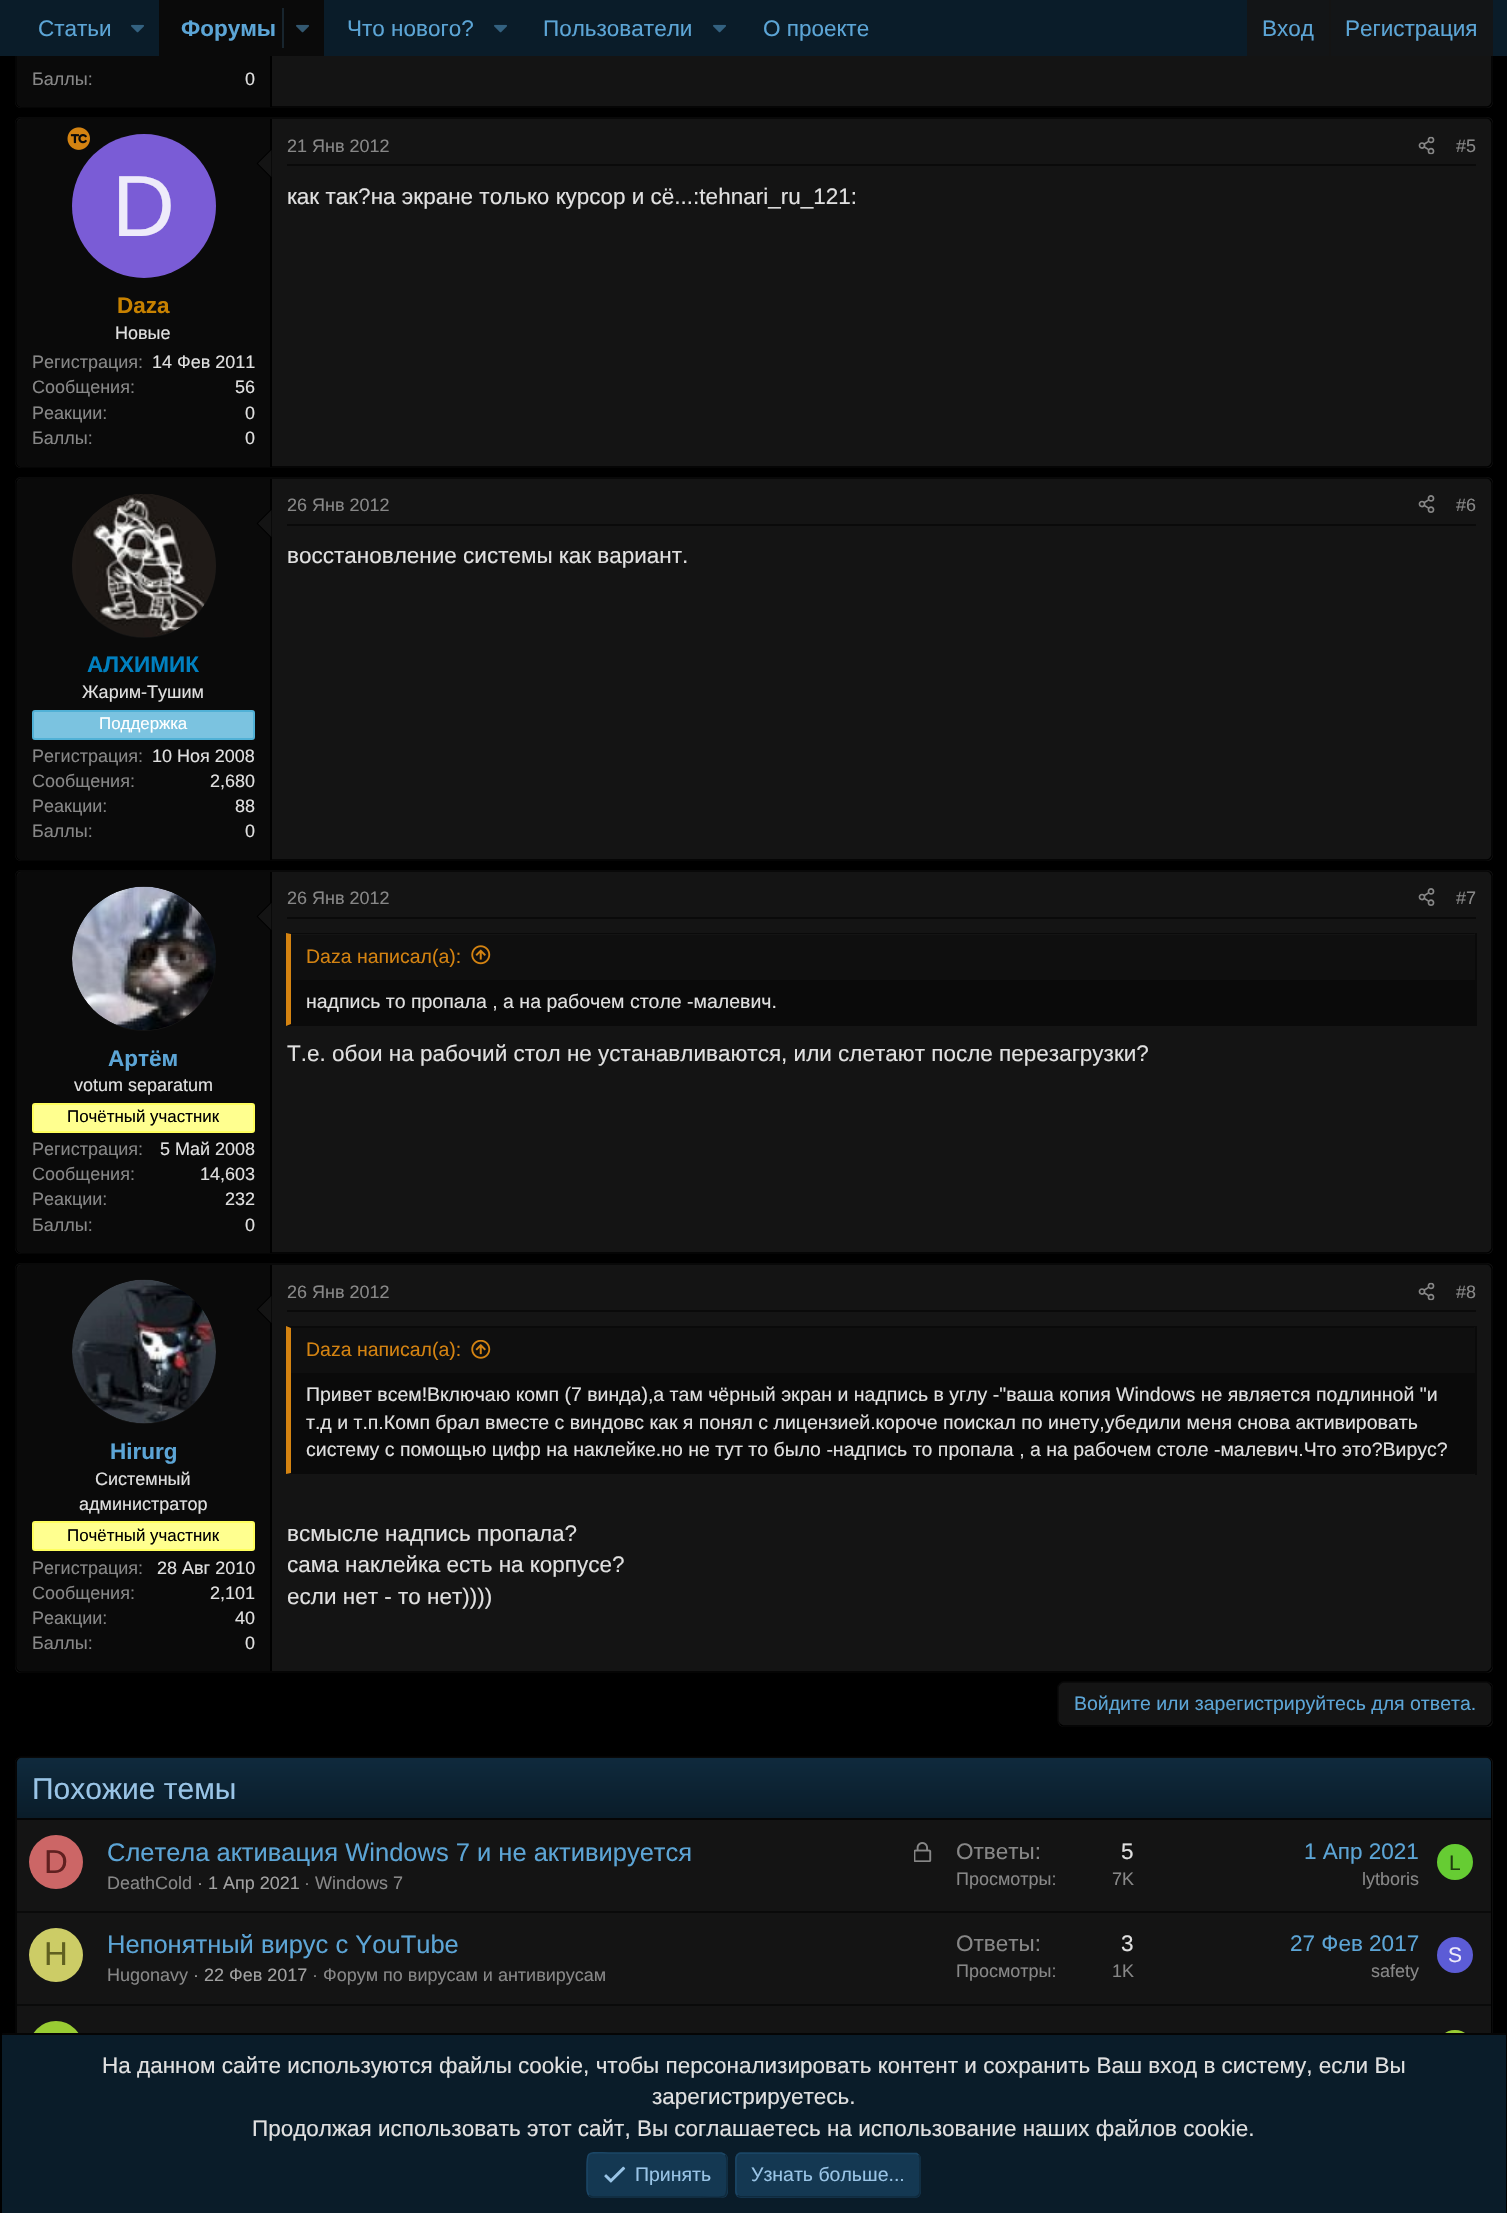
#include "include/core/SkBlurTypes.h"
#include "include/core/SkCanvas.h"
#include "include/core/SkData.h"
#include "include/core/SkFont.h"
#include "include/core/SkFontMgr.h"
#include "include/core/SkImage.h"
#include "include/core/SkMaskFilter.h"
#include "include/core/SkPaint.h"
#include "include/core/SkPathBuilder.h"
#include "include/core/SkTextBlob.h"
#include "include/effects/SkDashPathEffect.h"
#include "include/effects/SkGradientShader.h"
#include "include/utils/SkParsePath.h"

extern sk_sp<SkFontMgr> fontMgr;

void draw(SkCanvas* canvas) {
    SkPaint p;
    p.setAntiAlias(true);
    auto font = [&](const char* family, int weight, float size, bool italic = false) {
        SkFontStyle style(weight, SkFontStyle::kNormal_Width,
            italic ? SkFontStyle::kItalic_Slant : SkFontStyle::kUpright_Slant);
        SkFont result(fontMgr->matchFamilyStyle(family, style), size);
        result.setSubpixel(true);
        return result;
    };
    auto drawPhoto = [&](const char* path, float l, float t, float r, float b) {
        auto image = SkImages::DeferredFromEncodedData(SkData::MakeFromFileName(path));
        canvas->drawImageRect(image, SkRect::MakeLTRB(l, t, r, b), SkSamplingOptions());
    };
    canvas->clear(0xFF000000);
    p.setColor(0xFF141414);
    canvas->drawRoundRect(SkRect::MakeLTRB(15, -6, 1493, 108), 6, 6, p);
    p.setStyle(SkPaint::kStroke_Style);
    p.setStrokeWidth(1.5f);
    p.setColor(0xFF000000);
    canvas->drawPath(SkPathBuilder().moveTo(1490, -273.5f).cubicTo(1491, -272.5f, 1492, -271.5f, 1492, -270).lineTo(1492, 102).cubicTo(1492, 103.5f, 1491, 104.5f, 1490, 105.5f).cubicTo(1489, 106.5f, 1488, 107, 1486.5f, 107).lineTo(21, 107).cubicTo(19.5f, 107, 18.5f, 106.5f, 17.5f, 105.5f).cubicTo(16.5f, 104.5f, 16, 103.5f, 16, 102).lineTo(16, -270).cubicTo(16, -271.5f, 16.5f, -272.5f, 17.5f, -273.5f).detach(), p);
    p.setStyle(SkPaint::kFill_Style);
    p.setColor(0xFF0A0A0A);
    canvas->drawPath(SkPathBuilder().moveTo(22, -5).lineTo(272, -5).lineTo(272, 107).lineTo(22, 107).cubicTo(19, 107, 17, 105, 17, 102).lineTo(17, 0).cubicTo(17, -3, 19, -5, 22, -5).close().detach(), p);
    p.setColor(0xFF0A1C29);
    canvas->drawRect(SkRect::MakeLTRB(0, 0, 1507, 56), p);
    auto font1 = font("Liberation Sans", 400, 22.5f);
    p.setColor(0xFF5CA5D6);
    canvas->drawString("Статьи", 38, 36, font1, p);
    drawPhoto("media/1.png", 131, 24, 144, 33);
    p.setColor(0xFF0A0A0A);
    canvas->drawRect(SkRect::MakeLTRB(159, 0, 324, 56), p);
    auto font2 = font("Liberation Sans", 700, 22.5f);
    p.setColor(0xFF5CA5D6);
    canvas->drawString("Форумы", 181, 36, font2, p);
    p.setColor(0xFF18252E);
    canvas->drawRect(SkRect::MakeLTRB(282, 8, 284, 48), p);
    drawPhoto("media/2.png", 296, 24, 309, 33);
    p.setColor(0xFF5CA5D6);
    canvas->drawString("Что нового?", 347, 36, font1, p);
    drawPhoto("media/1.png", 494, 24, 507, 33);
    canvas->drawString("Пользователи", 543, 36, font1, p);
    drawPhoto("media/1.png", 713, 24, 726, 33);
    canvas->drawString("О проекте", 763, 36, font1, p);
    p.setColor(0xFF131517);
    canvas->drawRect(SkRect::MakeLTRB(1247, 0, 1493, 56), p);
    p.setColor(0xFF5CA5D6);
    canvas->drawString("Вход", 1262, 36, font1, p);
    p.setColor(0xFF141414);
    canvas->drawRect(SkRect::MakeLTRB(1329, 0, 1331, 56), p);
    p.setColor(0xFF5CA5D6);
    canvas->drawString("Регистрация", 1345, 36, font1, p);
    p.setColor(0xFF000000);
    canvas->drawRect(SkRect::MakeLTRB(270, 56, 272, 107), p);
    auto font3 = font("Liberation Sans", 400, 18);
    p.setColor(0xFF878787);
    canvas->drawString("Баллы:", 32, 85, font3, p);
    p.setColor(0xFFE0E0E0);
    canvas->drawString("0", 245, 85, font3, p);
    p.setColor(0xFF141414);
    canvas->drawRoundRect(SkRect::MakeLTRB(15, 117, 1493, 468), 6, 6, p);
    p.setStyle(SkPaint::kStroke_Style);
    p.setColor(0xFF050505);
    canvas->drawPath(SkPathBuilder().moveTo(17.5f, 119.5f).cubicTo(18.5f, 118.5f, 19.5f, 118, 21, 118).lineTo(1486.5f, 118).cubicTo(1488, 118, 1489, 118.5f, 1490, 119.5f).detach(), p);
    p.setColor(0xFF000000);
    canvas->drawPath(SkPathBuilder().moveTo(1490, 119.5f).cubicTo(1491, 120.5f, 1492, 121.5f, 1492, 123).lineTo(1492, 462).cubicTo(1492, 463.5f, 1491, 464.5f, 1490, 465.5f).cubicTo(1489, 466.5f, 1488, 467, 1486.5f, 467).lineTo(21, 467).cubicTo(19.5f, 467, 18.5f, 466.5f, 17.5f, 465.5f).cubicTo(16.5f, 464.5f, 16, 463.5f, 16, 462).lineTo(16, 123).cubicTo(16, 121.5f, 16.5f, 120.5f, 17.5f, 119.5f).detach(), p);
    p.setStyle(SkPaint::kFill_Style);
    p.setColor(0xFF0A0A0A);
    canvas->drawPath(SkPathBuilder().moveTo(22, 119).lineTo(272, 119).lineTo(272, 467).lineTo(22, 467).cubicTo(19, 467, 17, 465, 17, 462).lineTo(17, 124).cubicTo(17, 121, 19, 119, 22, 119).close().detach(), p);
    p.setColor(0xFF000000);
    canvas->drawRect(SkRect::MakeLTRB(270, 119, 272, 467), p);
    canvas->drawPath(SkPathBuilder().moveTo(271.5f, 148.5f).lineTo(271.5f, 178.5f).lineTo(256.5f, 163.5f).close().detach(), p);
    p.setColor(0xFF141414);
    canvas->drawPath(SkPathBuilder().moveTo(271.5f, 150).lineTo(271.5f, 177).lineTo(258, 163.5f).close().detach(), p);
    p.setColor(0xFF7A5CD6);
    canvas->drawCircle(144, 206, 72, p);
    drawPhoto("media/3.png", 67, 127, 90, 150);
    auto font4 = font("Liberation Sans", 400, 87);
    p.setColor(0xFFEEEBFA);
    canvas->drawString("D", 112, 236, font4, p);
    p.setColor(0xFFC78100);
    canvas->drawString("Daza", 117, 313, font2, p);
    p.setColor(0xFFE0E0E0);
    canvas->drawString("Новые", 115, 339, font3, p);
    p.setColor(0xFF878787);
    canvas->drawString("Регистрация:", 32, 368, font3, p);
    p.setColor(0xFFE0E0E0);
    canvas->drawString("14 Фев 2011", 152, 368, font3, p);
    p.setColor(0xFF878787);
    canvas->drawString("Сообщения:", 32, 393, font3, p);
    p.setColor(0xFFE0E0E0);
    canvas->drawString("56", 235, 393, font3, p);
    p.setColor(0xFF878787);
    canvas->drawString("Реакции:", 32, 419, font3, p);
    p.setColor(0xFFE0E0E0);
    canvas->drawString("0", 245, 419, font3, p);
    p.setColor(0xFF878787);
    canvas->drawString("Баллы:", 32, 444, font3, p);
    p.setColor(0xFFE0E0E0);
    canvas->drawString("0", 245, 444, font3, p);
    p.setColor(0xFF0A0A0A);
    canvas->drawRect(SkRect::MakeLTRB(287, 164, 1476, 166), p);
    p.setColor(0xFF878787);
    canvas->drawString("21 Янв 2012", 287, 152, font3, p);
    drawPhoto("media/4.png", 1418, 136, 1435, 155);
    canvas->drawString("#5", 1456, 152, font3, p);
    p.setColor(0xFFE0E0E0);
    canvas->drawString("как так?на экране только курсор и сё...:tehnari_ru_121:", 287, 204, font1, p);
    p.setColor(0xFF141414);
    canvas->drawRoundRect(SkRect::MakeLTRB(15, 477, 1493, 861), 6, 6, p);
    p.setStyle(SkPaint::kStroke_Style);
    p.setColor(0xFF050505);
    canvas->drawPath(SkPathBuilder().moveTo(17.5f, 479.5f).cubicTo(18.5f, 478.5f, 19.5f, 478, 21, 478).lineTo(1486.5f, 478).cubicTo(1488, 478, 1489, 478.5f, 1490, 479.5f).detach(), p);
    p.setColor(0xFF000000);
    canvas->drawPath(SkPathBuilder().moveTo(1490, 479.5f).cubicTo(1491, 480.5f, 1492, 481.5f, 1492, 483).lineTo(1492, 855).cubicTo(1492, 856.5f, 1491, 857.5f, 1490, 858.5f).cubicTo(1489, 859.5f, 1488, 860, 1486.5f, 860).lineTo(21, 860).cubicTo(19.5f, 860, 18.5f, 859.5f, 17.5f, 858.5f).cubicTo(16.5f, 857.5f, 16, 856.5f, 16, 855).lineTo(16, 483).cubicTo(16, 481.5f, 16.5f, 480.5f, 17.5f, 479.5f).detach(), p);
    p.setStyle(SkPaint::kFill_Style);
    p.setColor(0xFF0A0A0A);
    canvas->drawRect(SkRect::MakeLTRB(287, 524, 1476, 526), p);
    p.setColor(0xFF878787);
    canvas->drawString("26 Янв 2012", 287, 511, font3, p);
    drawPhoto("media/5.png", 1418, 495, 1435, 513);
    canvas->drawString("#6", 1456, 511, font3, p);
    p.setColor(0xFFE0E0E0);
    canvas->drawString("восстановление системы как вариант.", 287, 563, font1, p);
    p.setColor(0xFF0A0A0A);
    canvas->drawPath(SkPathBuilder().moveTo(22, 479).lineTo(272, 479).lineTo(272, 860).lineTo(22, 860).cubicTo(19, 860, 17, 858, 17, 855).lineTo(17, 484).cubicTo(17, 481, 19, 479, 22, 479).close().detach(), p);
    p.setColor(0xFF000000);
    canvas->drawRect(SkRect::MakeLTRB(270, 479, 272, 860), p);
    p.setColor(0xFF141414);
    canvas->drawCircle(144, 566, 72, p);
    drawPhoto("media/6.png", 72, 494, 216, 637);
    p.setColor(0xFF000000);
    canvas->drawPath(SkPathBuilder().moveTo(271.5f, 508.5f).lineTo(271.5f, 538.5f).lineTo(256.5f, 523.5f).close().detach(), p);
    p.setColor(0xFF141414);
    canvas->drawPath(SkPathBuilder().moveTo(271.5f, 510).lineTo(271.5f, 537).lineTo(258, 523.5f).close().detach(), p);
    p.setColor(0xFF0080C0);
    canvas->drawString("AЛХИМИК", 87, 672, font2, p);
    p.setColor(0xFFE0E0E0);
    canvas->drawString("Жарим-Тушим", 82, 698, font3, p);
    p.setColor(0xFF7BC3E0);
    canvas->drawRoundRect(SkRect::MakeLTRB(33, 711, 254, 739), 2, 2, p);
    p.setStyle(SkPaint::kStroke_Style);
    p.setStrokeWidth(2);
    p.setColor(0xFF51B1D6);
    canvas->drawRoundRect(SkRect::MakeLTRB(33, 711, 254, 739), 2, 2, p);
    auto font5 = font("Liberation Sans", 400, 16.9f);
    p.setStyle(SkPaint::kFill_Style);
    p.setColor(0xFFFFFFFF);
    canvas->drawString("Поддержка", 99, 729, font5, p);
    p.setColor(0xFF878787);
    canvas->drawString("Регистрация:", 32, 762, font3, p);
    p.setColor(0xFFE0E0E0);
    canvas->drawString("10 Ноя 2008", 152, 762, font3, p);
    p.setColor(0xFF878787);
    canvas->drawString("Сообщения:", 32, 787, font3, p);
    p.setColor(0xFFE0E0E0);
    canvas->drawString("2,680", 210, 787, font3, p);
    p.setColor(0xFF878787);
    canvas->drawString("Реакции:", 32, 812, font3, p);
    p.setColor(0xFFE0E0E0);
    canvas->drawString("88", 235, 812, font3, p);
    p.setColor(0xFF878787);
    canvas->drawString("Баллы:", 32, 837, font3, p);
    p.setColor(0xFFE0E0E0);
    canvas->drawString("0", 245, 837, font3, p);
    p.setColor(0xFF141414);
    canvas->drawRoundRect(SkRect::MakeLTRB(15, 870, 1493, 1254), 6, 6, p);
    p.setStyle(SkPaint::kStroke_Style);
    p.setStrokeWidth(1.5f);
    p.setColor(0xFF050505);
    canvas->drawPath(SkPathBuilder().moveTo(17.5f, 872.5f).cubicTo(18.5f, 871.5f, 19.5f, 871, 21, 871).lineTo(1486.5f, 871).cubicTo(1488, 871, 1489, 871.5f, 1490, 872.5f).detach(), p);
    p.setColor(0xFF000000);
    canvas->drawPath(SkPathBuilder().moveTo(1490, 872.5f).cubicTo(1491, 873.5f, 1492, 874.5f, 1492, 876).lineTo(1492, 1248).cubicTo(1492, 1249.5f, 1491, 1250.5f, 1490, 1251.5f).cubicTo(1489, 1252.5f, 1488, 1253, 1486.5f, 1253).lineTo(21, 1253).cubicTo(19.5f, 1253, 18.5f, 1252.5f, 17.5f, 1251.5f).cubicTo(16.5f, 1250.5f, 16, 1249.5f, 16, 1248).lineTo(16, 876).cubicTo(16, 874.5f, 16.5f, 873.5f, 17.5f, 872.5f).detach(), p);
    p.setStyle(SkPaint::kFill_Style);
    p.setColor(0xFF0A0A0A);
    canvas->drawRect(SkRect::MakeLTRB(287, 917, 1476, 919), p);
    p.setColor(0xFF878787);
    canvas->drawString("26 Янв 2012", 287, 904, font3, p);
    drawPhoto("media/5.png", 1418, 888, 1435, 906);
    canvas->drawString("#7", 1456, 904, font3, p);
    p.setColor(0xFF0A0A0A);
    canvas->drawRect(SkRect::MakeLTRB(291, 980, 1475, 1025), p);
    canvas->drawPath(SkPathBuilder().moveTo(286, 933).lineTo(1476, 933).lineTo(1474, 934).lineTo(291, 934).close().detach(), p);
    canvas->drawRect(SkRect::MakeLTRB(1475, 933, 1477, 1026), p);
    canvas->drawPath(SkPathBuilder().moveTo(1476, 1026).lineTo(286, 1026).lineTo(291, 1024).lineTo(1474, 1024).close().detach(), p);
    p.setColor(0xFFD48311);
    canvas->drawPath(SkPathBuilder().moveTo(286, 1026).lineTo(286, 933).lineTo(291, 934).lineTo(291, 1024).close().detach(), p);
    p.setColor(0xFF0F0F0F);
    canvas->drawRect(SkRect::MakeLTRB(291, 935, 1475, 980), p);
    auto font6 = font("Liberation Sans", 400, 19.5f);
    p.setColor(0xFFD48311);
    canvas->drawString("Daza написал(а):", 306, 963, font6, p);
    drawPhoto("media/7.png", 471, 945, 491, 965);
    p.setColor(0xFFE0E0E0);
    canvas->drawString("надпись то пропала , а на рабочем столе -малевич.", 306, 1008, font6, p);
    canvas->drawString("Т.е. обои на рабочий стол не устанавливаются, или слетают после перезагрузки?", 287, 1061, font1, p);
    p.setColor(0xFF0A0A0A);
    canvas->drawPath(SkPathBuilder().moveTo(22, 872).lineTo(272, 872).lineTo(272, 1253).lineTo(22, 1253).cubicTo(19, 1253, 17, 1251, 17, 1248).lineTo(17, 877).cubicTo(17, 874, 19, 872, 22, 872).close().detach(), p);
    p.setColor(0xFF000000);
    canvas->drawRect(SkRect::MakeLTRB(270, 872, 272, 1253), p);
    p.setColor(0xFF141414);
    canvas->drawCircle(144, 959, 72, p);
    drawPhoto("media/8.png", 72, 886, 216, 1030);
    p.setColor(0xFF000000);
    canvas->drawPath(SkPathBuilder().moveTo(271.5f, 901.5f).lineTo(271.5f, 931.5f).lineTo(256.5f, 916.5f).close().detach(), p);
    p.setColor(0xFF141414);
    canvas->drawPath(SkPathBuilder().moveTo(271.5f, 903).lineTo(271.5f, 930).lineTo(258, 916.5f).close().detach(), p);
    p.setColor(0xFF5CA5D6);
    canvas->drawString("Артём", 108, 1066, font2, p);
    p.setColor(0xFFE0E0E0);
    canvas->drawString("votum separatum", 74, 1091, font3, p);
    p.setColor(0xFFFFFF8F);
    canvas->drawRoundRect(SkRect::MakeLTRB(33, 1104, 254, 1132), 2, 2, p);
    p.setStyle(SkPaint::kStroke_Style);
    p.setStrokeWidth(2);
    p.setColor(0xFFFFFF5C);
    canvas->drawRoundRect(SkRect::MakeLTRB(33, 1104, 254, 1132), 2, 2, p);
    p.setStyle(SkPaint::kFill_Style);
    p.setColor(0xFF000000);
    canvas->drawString("Почётный участник", 67, 1122, font5, p);
    p.setColor(0xFF878787);
    canvas->drawString("Регистрация:", 32, 1155, font3, p);
    p.setColor(0xFFE0E0E0);
    canvas->drawString("5 Май 2008", 160, 1155, font3, p);
    p.setColor(0xFF878787);
    canvas->drawString("Сообщения:", 32, 1180, font3, p);
    p.setColor(0xFFE0E0E0);
    canvas->drawString("14,603", 200, 1180, font3, p);
    p.setColor(0xFF878787);
    canvas->drawString("Реакции:", 32, 1205, font3, p);
    p.setColor(0xFFE0E0E0);
    canvas->drawString("232", 225, 1205, font3, p);
    p.setColor(0xFF878787);
    canvas->drawString("Баллы:", 32, 1231, font3, p);
    p.setColor(0xFFE0E0E0);
    canvas->drawString("0", 245, 1231, font3, p);
    p.setColor(0xFF141414);
    canvas->drawRoundRect(SkRect::MakeLTRB(15, 1263, 1493, 1673), 6, 6, p);
    p.setStyle(SkPaint::kStroke_Style);
    p.setStrokeWidth(1.5f);
    p.setColor(0xFF050505);
    canvas->drawPath(SkPathBuilder().moveTo(17.5f, 1265.5f).cubicTo(18.5f, 1264.5f, 19.5f, 1264, 21, 1264).lineTo(1486.5f, 1264).cubicTo(1488, 1264, 1489, 1264.5f, 1490, 1265.5f).detach(), p);
    p.setColor(0xFF000000);
    canvas->drawPath(SkPathBuilder().moveTo(1490, 1265.5f).cubicTo(1491, 1266.5f, 1492, 1267.5f, 1492, 1269).lineTo(1492, 1666.5f).cubicTo(1492, 1668, 1491, 1669, 1490, 1670).cubicTo(1489, 1671, 1488, 1672, 1486.5f, 1672).lineTo(21, 1672).cubicTo(19.5f, 1672, 18.5f, 1671, 17.5f, 1670).cubicTo(16.5f, 1669, 16, 1668, 16, 1666.5f).lineTo(16, 1269).cubicTo(16, 1267.5f, 16.5f, 1266.5f, 17.5f, 1265.5f).detach(), p);
    p.setStyle(SkPaint::kFill_Style);
    p.setColor(0xFF0A0A0A);
    canvas->drawPath(SkPathBuilder().moveTo(22, 1265).lineTo(272, 1265).lineTo(272, 1671).lineTo(22, 1671).cubicTo(19, 1671, 17, 1669, 17, 1666).lineTo(17, 1270).cubicTo(17, 1267, 19, 1265, 22, 1265).close().detach(), p);
    p.setColor(0xFF000000);
    canvas->drawRect(SkRect::MakeLTRB(270, 1265, 272, 1671), p);
    p.setColor(0xFF141414);
    canvas->drawCircle(144, 1352, 72, p);
    drawPhoto("media/9.png", 72, 1279, 216, 1424);
    p.setColor(0xFF000000);
    canvas->drawPath(SkPathBuilder().moveTo(271.5f, 1294.5f).lineTo(271.5f, 1324.5f).lineTo(256.5f, 1309.5f).close().detach(), p);
    p.setColor(0xFF141414);
    canvas->drawPath(SkPathBuilder().moveTo(271.5f, 1296).lineTo(271.5f, 1323).lineTo(258, 1309.5f).close().detach(), p);
    p.setColor(0xFF5CA5D6);
    canvas->drawString("Hirurg", 110, 1459, font2, p);
    p.setColor(0xFFE0E0E0);
    canvas->drawString("Системный", 95, 1485, font3, p);
    canvas->drawString("администратор", 79, 1510, font3, p);
    p.setColor(0xFFFFFF8F);
    canvas->drawRoundRect(SkRect::MakeLTRB(33, 1522, 254, 1550), 2, 2, p);
    p.setStyle(SkPaint::kStroke_Style);
    p.setStrokeWidth(2);
    p.setColor(0xFFFFFF5C);
    canvas->drawRoundRect(SkRect::MakeLTRB(33, 1522, 254, 1550), 2, 2, p);
    p.setStyle(SkPaint::kFill_Style);
    p.setColor(0xFF000000);
    canvas->drawString("Почётный участник", 67, 1541, font5, p);
    p.setColor(0xFF878787);
    canvas->drawString("Регистрация:", 32, 1574, font3, p);
    p.setColor(0xFFE0E0E0);
    canvas->drawString("28 Авг 2010", 157, 1574, font3, p);
    p.setColor(0xFF878787);
    canvas->drawString("Сообщения:", 32, 1599, font3, p);
    p.setColor(0xFFE0E0E0);
    canvas->drawString("2,101", 210, 1599, font3, p);
    p.setColor(0xFF878787);
    canvas->drawString("Реакции:", 32, 1624, font3, p);
    p.setColor(0xFFE0E0E0);
    canvas->drawString("40", 235, 1624, font3, p);
    p.setColor(0xFF878787);
    canvas->drawString("Баллы:", 32, 1649, font3, p);
    p.setColor(0xFFE0E0E0);
    canvas->drawString("0", 245, 1649, font3, p);
    p.setColor(0xFF0A0A0A);
    canvas->drawRect(SkRect::MakeLTRB(287, 1310, 1476, 1312), p);
    p.setColor(0xFF878787);
    canvas->drawString("26 Янв 2012", 287, 1298, font3, p);
    drawPhoto("media/4.png", 1418, 1282, 1435, 1301);
    canvas->drawString("#8", 1456, 1298, font3, p);
    p.setColor(0xFF0A0A0A);
    canvas->drawRect(SkRect::MakeLTRB(291, 1373, 1475, 1473), p);
    canvas->drawPath(SkPathBuilder().moveTo(286, 1326).lineTo(1476, 1326).lineTo(1474, 1328).lineTo(291, 1328).close().detach(), p);
    canvas->drawRect(SkRect::MakeLTRB(1475, 1326, 1477, 1475), p);
    canvas->drawPath(SkPathBuilder().moveTo(1476, 1474).lineTo(286, 1474).lineTo(291, 1473).lineTo(1474, 1473).close().detach(), p);
    p.setColor(0xFFD48311);
    canvas->drawPath(SkPathBuilder().moveTo(286, 1474).lineTo(286, 1326).lineTo(291, 1328).lineTo(291, 1473).close().detach(), p);
    p.setColor(0xFF0F0F0F);
    canvas->drawRect(SkRect::MakeLTRB(291, 1328, 1475, 1373), p);
    p.setColor(0xFFD48311);
    canvas->drawString("Daza написал(а):", 306, 1356, font6, p);
    drawPhoto("media/10.png", 471, 1340, 491, 1359);
    p.setColor(0xFFE0E0E0);
    {
        const struct { const char* s; float x, y; } items[] = {
            {"Привет всем!Включаю комп (7 винда),а там чёрный экран и надпись в углу -\"ваша копия Windows не является подлинной \"и", 306, 1401},
            {"т.д и т.п.Комп брал вместе с виндовс как я понял с лицензией.короче поискал по инету,убедили меня снова активировать", 306, 1429},
            {"систему с помощью цифр на наклейке.но не тут то было -надпись то пропала , а на рабочем столе -малевич.Что это?Вирус?", 306, 1456},
        };
        for (auto [s, x, y] : items) {
            canvas->drawString(s, x, y, font6, p);
        }
    }
    {
        const struct { const char* s; float x, y; } items[] = {
            {"всмысле надпись пропала?", 287, 1541},
            {"сама наклейка есть на корпусе?", 287, 1572},
            {"если нет - то нет))))", 287, 1604},
        };
        for (auto [s, x, y] : items) {
            canvas->drawString(s, x, y, font1, p);
        }
    }
    p.setColor(0xFF141414);
    canvas->drawRoundRect(SkRect::MakeLTRB(1058, 1682, 1493, 1727), 6, 6, p);
    p.setStyle(SkPaint::kStroke_Style);
    p.setStrokeWidth(1.5f);
    p.setColor(0xFF000000);
    canvas->drawPath(SkPathBuilder().moveTo(1490, 1684).cubicTo(1491, 1685, 1492, 1686, 1492, 1687.5f).lineTo(1492, 1720.5f).cubicTo(1492, 1722, 1491, 1723, 1490, 1724).cubicTo(1489, 1725, 1488, 1726, 1486.5f, 1726).lineTo(1063.5f, 1726).cubicTo(1062, 1726, 1061, 1725, 1060, 1724).detach(), p);
    p.setColor(0xFF080808);
    canvas->drawPath(SkPathBuilder().moveTo(1060, 1724).cubicTo(1059, 1723, 1058, 1722, 1058, 1720.5f).lineTo(1058, 1687.5f).cubicTo(1058, 1686, 1059, 1685, 1060, 1684).cubicTo(1061, 1683, 1062, 1682, 1063.5f, 1682).lineTo(1486.5f, 1682).cubicTo(1488, 1682, 1489, 1683, 1490, 1684).detach(), p);
    p.setStyle(SkPaint::kFill_Style);
    p.setColor(0xFF5CA5D6);
    canvas->drawString("Войдите или зарегистрируйтесь для ответа.", 1074, 1710, font6, p);
    p.setColor(0xFF141414);
    canvas->drawRoundRect(SkRect::MakeLTRB(15, 1757, 1493, 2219), 6, 6, p);
    p.setStyle(SkPaint::kStroke_Style);
    p.setColor(0xFF050505);
    canvas->drawPath(SkPathBuilder().moveTo(17.5f, 1759).cubicTo(18.5f, 1758, 19.5f, 1757, 21, 1757).lineTo(1486.5f, 1757).cubicTo(1488, 1757, 1489, 1758, 1490, 1759).detach(), p);
    p.setColor(0xFF000000);
    canvas->drawPath(SkPathBuilder().moveTo(1490, 1759).lineTo(1491.5f, 1762).lineTo(1492, 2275.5f).cubicTo(1491.5f, 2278.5f, 1489.5f, 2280.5f, 1486.5f, 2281).lineTo(21, 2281).cubicTo(18, 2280.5f, 16, 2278.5f, 16, 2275.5f).lineTo(16, 1762).lineTo(17.5f, 1759).detach(), p);
    p.setStyle(SkPaint::kFill_Style);
    {
        const SkColor colors[] = {0xFF0A1C29, 0xFF0F2A3D};
        const float stops[] = {0, 1};
        const SkPoint ends[] = {{754, 1818}, {754, 1758}};
        p.setShader(SkGradientShader::MakeLinear(ends, colors, stops, 2, SkTileMode::kClamp));
        p.setAlpha(255);
    }
    canvas->drawPath(SkPathBuilder().moveTo(22, 1758).lineTo(1486, 1758).cubicTo(1489, 1758, 1491, 1760, 1491, 1763).lineTo(1491, 1818).lineTo(17, 1818).lineTo(17, 1763).cubicTo(17, 1760, 19, 1758, 22, 1758).close().detach(), p);
    p.setShader(nullptr);
    p.setColor(0xFF050505);
    canvas->drawRect(SkRect::MakeLTRB(17, 1818, 1491, 1820), p);
    auto font7 = font("Liberation Sans", 400, 30);
    p.setColor(0xFF99C4E6);
    canvas->drawString("Похожие темы", 32, 1799, font7, p);
    p.setColor(0xFFCC6666);
    canvas->drawCircle(56, 1862, 27, p);
    auto font8 = font("Liberation Sans", 400, 33);
    p.setColor(0xFF602020);
    canvas->drawString("D", 44, 1873, font8, p);
    auto font9 = font("Liberation Sans", 400, 25.5f);
    p.setColor(0xFF5CA5D6);
    canvas->drawString("Слетела активация Windows 7 и не активируется", 107, 1861, font9, p);
    drawPhoto("media/11.png", 914, 1842, 932, 1862);
    p.setColor(0xFF878787);
    canvas->drawString("DeathCold", 107, 1889, font3, p);
    p.setColor(0xFFA1A1A1);
    canvas->drawString("· 1 Апр 2021", 197, 1889, font3, p);
    p.setColor(0xFF878787);
    canvas->drawString("· Windows 7", 304, 1889, font3, p);
    canvas->drawString("Ответы:", 956, 1859, font1, p);
    p.setColor(0xFFE0E0E0);
    canvas->drawString("5", 1121, 1859, font1, p);
    p.setColor(0xFF878787);
    canvas->drawString("Просмотры:", 956, 1885, font3, p);
    canvas->drawString("7K", 1112, 1885, font3, p);
    p.setColor(0xFF5CA5D6);
    canvas->drawString("1 Апр 2021", 1304, 1859, font1, p);
    p.setColor(0xFF878787);
    canvas->drawString("lytboris", 1362, 1885, font3, p);
    p.setColor(0xFF66CC33);
    canvas->drawCircle(1455, 1862, 18, p);
    auto font10 = font("Liberation Sans", 400, 21);
    p.setColor(0xFF1F3D0F);
    canvas->drawString("L", 1449, 1870, font10, p);
    p.setColor(0xFF0A0A0A);
    canvas->drawRect(SkRect::MakeLTRB(17, 1911, 1491, 1913), p);
    p.setColor(0xFFCCCC66);
    canvas->drawCircle(56, 1955, 27, p);
    p.setColor(0xFF606020);
    canvas->drawString("H", 44, 1965, font8, p);
    p.setColor(0xFF5CA5D6);
    canvas->drawString("Непонятный вирус с YouTube", 107, 1953, font9, p);
    p.setColor(0xFF878787);
    canvas->drawString("Hugonavy", 107, 1981, font3, p);
    p.setColor(0xFFA1A1A1);
    canvas->drawString("· 22 Фев 2017", 193, 1981, font3, p);
    p.setColor(0xFF878787);
    canvas->drawString("· Форум по вирусам и антивирусам", 312, 1981, font3, p);
    canvas->drawString("Ответы:", 956, 1951, font1, p);
    p.setColor(0xFFE0E0E0);
    canvas->drawString("3", 1121, 1951, font1, p);
    p.setColor(0xFF878787);
    canvas->drawString("Просмотры:", 956, 1977, font3, p);
    canvas->drawString("1K", 1112, 1977, font3, p);
    p.setColor(0xFF5CA5D6);
    canvas->drawString("27 Фев 2017", 1290, 1951, font1, p);
    p.setColor(0xFF878787);
    canvas->drawString("safety", 1371, 1977, font3, p);
    p.setColor(0xFF5C5CD6);
    canvas->drawCircle(1455, 1955, 18, p);
    p.setColor(0xFFEEEBFA);
    canvas->drawString("S", 1448, 1962, font10, p);
    p.setColor(0xFF0A0A0A);
    canvas->drawRect(SkRect::MakeLTRB(17, 2004, 1491, 2006), p);
    p.setColor(0xFF99CC33);
    canvas->drawCircle(56, 2048, 27, p);
    canvas->drawCircle(1455, 2048, 18, p);
    {
        const struct { float l, t, r, b; SkColor color; } items[] = {
            {2, 2035, 1506, 2213, 0xFF0A1C29},
            {0, 2033, 1507, 2035, 0xFF050505},
            {1506, 2033, 1507, 2035, 0xFF000000},
            {0, 2033, 2, 2035, 0xFF000000},
        };
        for (auto [l, t, r, b, color] : items) {
            p.setColor(color);
            canvas->drawRect(SkRect::MakeLTRB(l, t, r, b), p);
        }
    }
    p.setColor(0xFFE0E0E0);
    {
        const struct { const char* s; float x, y; } items[] = {
            {"На данном сайте используются файлы cookie, чтобы персонализировать контент и сохранить Ваш вход в систему, если Вы", 102, 2073},
            {"зарегистрируетесь.", 652, 2104},
            {"Продолжая использовать этот сайт, Вы соглашаетесь на использование наших файлов cookie.", 252, 2136},
        };
        for (auto [s, x, y] : items) {
            canvas->drawString(s, x, y, font1, p);
        }
    }
    p.setColor(0xFF143852);
    canvas->drawRoundRect(SkRect::MakeLTRB(587, 2153, 728, 2198), 6, 6, p);
    p.setStyle(SkPaint::kStroke_Style);
    p.setColor(0xFF0F2A3D);
    canvas->drawPath(SkPathBuilder().moveTo(725, 2155).cubicTo(727.5f, 2157, 727, 2161, 727, 2164).lineTo(727, 2175).cubicTo(727, 2202, 729.5f, 2197, 700, 2197).lineTo(592.5f, 2197).cubicTo(591, 2196.5f, 590, 2196, 589, 2195).detach(), p);
    p.setColor(0xFF1A4666);
    canvas->drawPath(SkPathBuilder().moveTo(589, 2195).cubicTo(586.5f, 2193, 587, 2189, 587, 2186).lineTo(587, 2175).cubicTo(587, 2148, 584.5f, 2153, 614, 2153).lineTo(721.5f, 2153).cubicTo(723, 2153.5f, 724, 2154, 725, 2155).detach(), p);
    drawPhoto("media/12.png", 604, 2166, 626, 2183);
    p.setStyle(SkPaint::kFill_Style);
    p.setColor(0xFF99C4E6);
    canvas->drawString("Принять", 635, 2181, font6, p);
    p.setColor(0xFF143852);
    canvas->drawRoundRect(SkRect::MakeLTRB(735, 2153, 921, 2198), 6, 6, p);
    p.setStyle(SkPaint::kStroke_Style);
    p.setColor(0xFF0F2A3D);
    canvas->drawPath(SkPathBuilder().moveTo(918.5f, 2155).cubicTo(921, 2157, 920, 2161, 920, 2164).lineTo(920, 2186).cubicTo(920, 2190, 921, 2196.5f, 915, 2197).lineTo(739.5f, 2196.5f).lineTo(737.5f, 2195).detach(), p);
    p.setColor(0xFF1A4666);
    canvas->drawPath(SkPathBuilder().moveTo(737.5f, 2195).cubicTo(735, 2193, 736, 2189, 736, 2186).lineTo(736, 2164).cubicTo(736, 2160, 735, 2153.5f, 741, 2153).lineTo(916.5f, 2153.5f).lineTo(918.5f, 2155).detach(), p);
    p.setStyle(SkPaint::kFill_Style);
    p.setColor(0xFF99C4E6);
    canvas->drawString("Узнать больше...", 751, 2181, font6, p);
}
